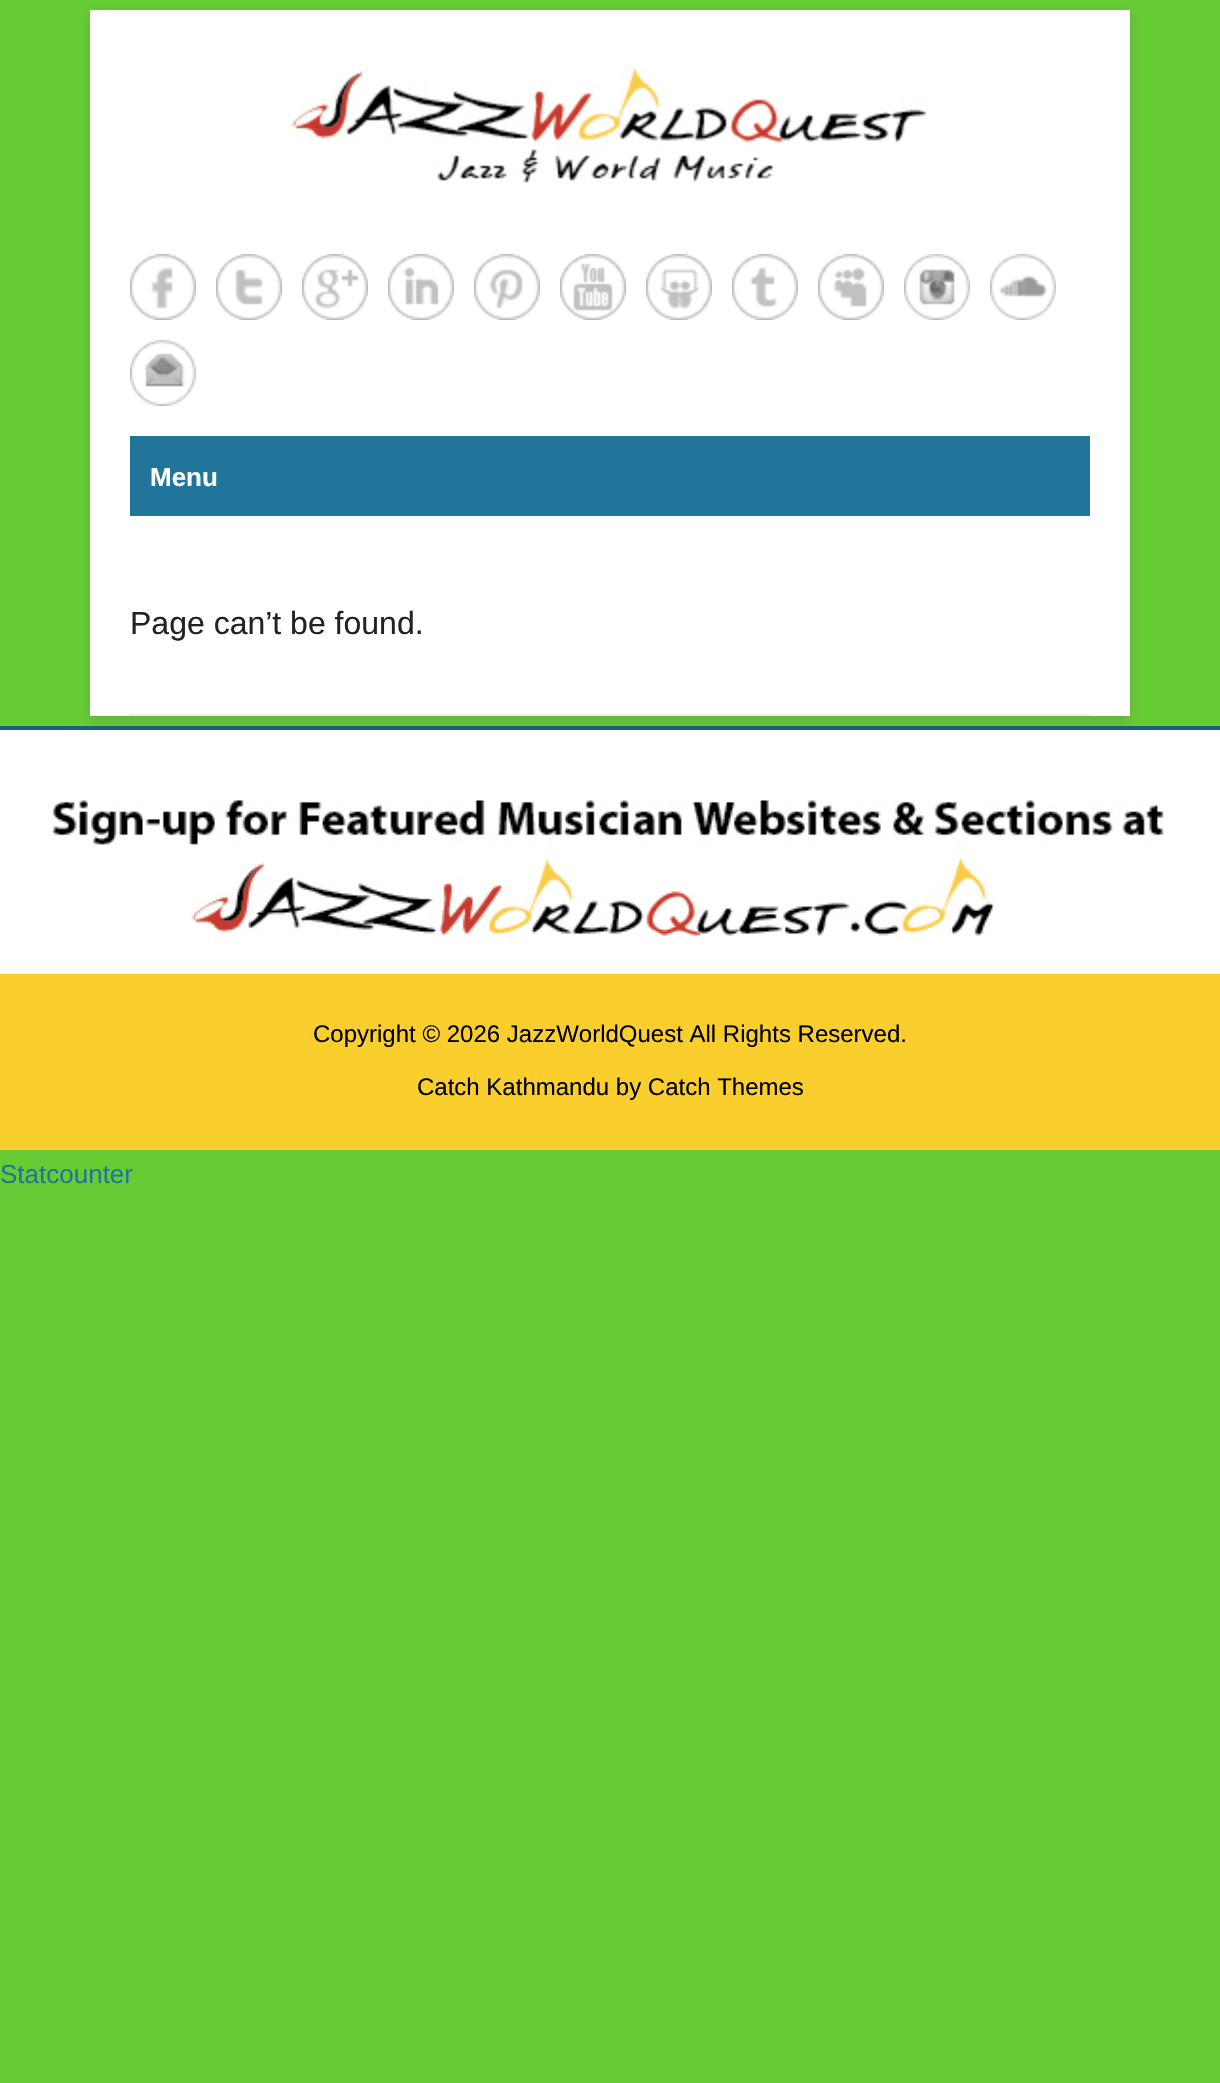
#include "include/core/SkBlurTypes.h"
#include "include/core/SkCanvas.h"
#include "include/core/SkData.h"
#include "include/core/SkFont.h"
#include "include/core/SkFontMgr.h"
#include "include/core/SkImage.h"
#include "include/core/SkMaskFilter.h"
#include "include/core/SkPaint.h"
#include "include/core/SkPathBuilder.h"
#include "include/core/SkTextBlob.h"
#include "include/effects/SkDashPathEffect.h"
#include "include/effects/SkGradientShader.h"
#include "include/utils/SkParsePath.h"

extern sk_sp<SkFontMgr> fontMgr;

void draw(SkCanvas* canvas) {
    SkPaint p;
    p.setAntiAlias(true);
    auto font = [&](const char* family, int weight, float size, bool italic = false) {
        SkFontStyle style(weight, SkFontStyle::kNormal_Width,
            italic ? SkFontStyle::kItalic_Slant : SkFontStyle::kUpright_Slant);
        SkFont result(fontMgr->matchFamilyStyle(family, style), size);
        result.setSubpixel(true);
        return result;
    };
    auto drawPhoto = [&](const char* path, float l, float t, float r, float b) {
        auto image = SkImages::DeferredFromEncodedData(SkData::MakeFromFileName(path));
        canvas->drawImageRect(image, SkRect::MakeLTRB(l, t, r, b), SkSamplingOptions());
    };
    canvas->clear(0xFF66CC33);
    p.setColor(0x4D646464);
    p.setMaskFilter(SkMaskFilter::MakeBlur(kNormal_SkBlurStyle, 6));
    canvas->drawRect(SkRect::MakeLTRB(90, 14, 1130, 720), p);
    p.setMaskFilter(nullptr);
    p.setColor(0xFFFFFFFF);
    canvas->drawRect(SkRect::MakeLTRB(90, 10, 1130, 716), p);
    drawPhoto("media/1.png", 291, 67, 927, 183);
    drawPhoto("media/2.png", 130, 254, 196, 320);
    drawPhoto("media/3.png", 216, 254, 282, 320);
    drawPhoto("media/4.png", 302, 254, 368, 320);
    drawPhoto("media/5.png", 388, 254, 454, 320);
    drawPhoto("media/6.png", 474, 254, 540, 320);
    drawPhoto("media/7.png", 560, 254, 626, 320);
    drawPhoto("media/8.png", 646, 254, 712, 320);
    drawPhoto("media/9.png", 732, 254, 798, 320);
    drawPhoto("media/10.png", 818, 254, 884, 320);
    drawPhoto("media/11.png", 904, 254, 970, 320);
    drawPhoto("media/12.png", 990, 254, 1056, 320);
    drawPhoto("media/13.png", 130, 340, 196, 406);
    p.setColor(0xFF21759B);
    canvas->drawRect(SkRect::MakeLTRB(130, 436, 1090, 516), p);
    auto font1 = font("Liberation Sans", 700, 26);
    p.setColor(0xFFFFFFFF);
    canvas->drawString("Menu", 150, 486, font1, p);
    p.setColor(0xFFEEEEEE);
    canvas->drawRect(SkRect::MakeLTRB(130, 714, 1090, 716), p);
    auto font2 = font("Liberation Sans", 400, 32);
    p.setColor(0xFF222222);
    canvas->drawString("Page can’t be found.", 130, 634, font2, p);
    p.setColor(0xFF1B5F7D);
    canvas->drawRect(SkRect::MakeLTRB(0, 726, 1220, 730), p);
    p.setColor(0xFFFFFFFF);
    canvas->drawRect(SkRect::MakeLTRB(0, 730, 1220, 974), p);
    drawPhoto("media/14.png", 52, 800, 1164, 936);
    p.setColor(0xFFFACE2D);
    canvas->drawRect(SkRect::MakeLTRB(0, 974, 1220, 1150), p);
    auto font3 = font("Liberation Sans", 400, 24);
    p.setColor(0xFF000000);
    canvas->drawString("Copyright © 2026 JazzWorldQuest All Rights Reserved.", 313, 1042, font3, p);
    canvas->drawString("Catch Kathmandu by Catch Themes", 417, 1095, font3, p);
    auto font4 = font("Liberation Sans", 400, 26);
    p.setColor(0xFF21759B);
    canvas->drawString("Statcounter", 0, 1183, font4, p);
}
